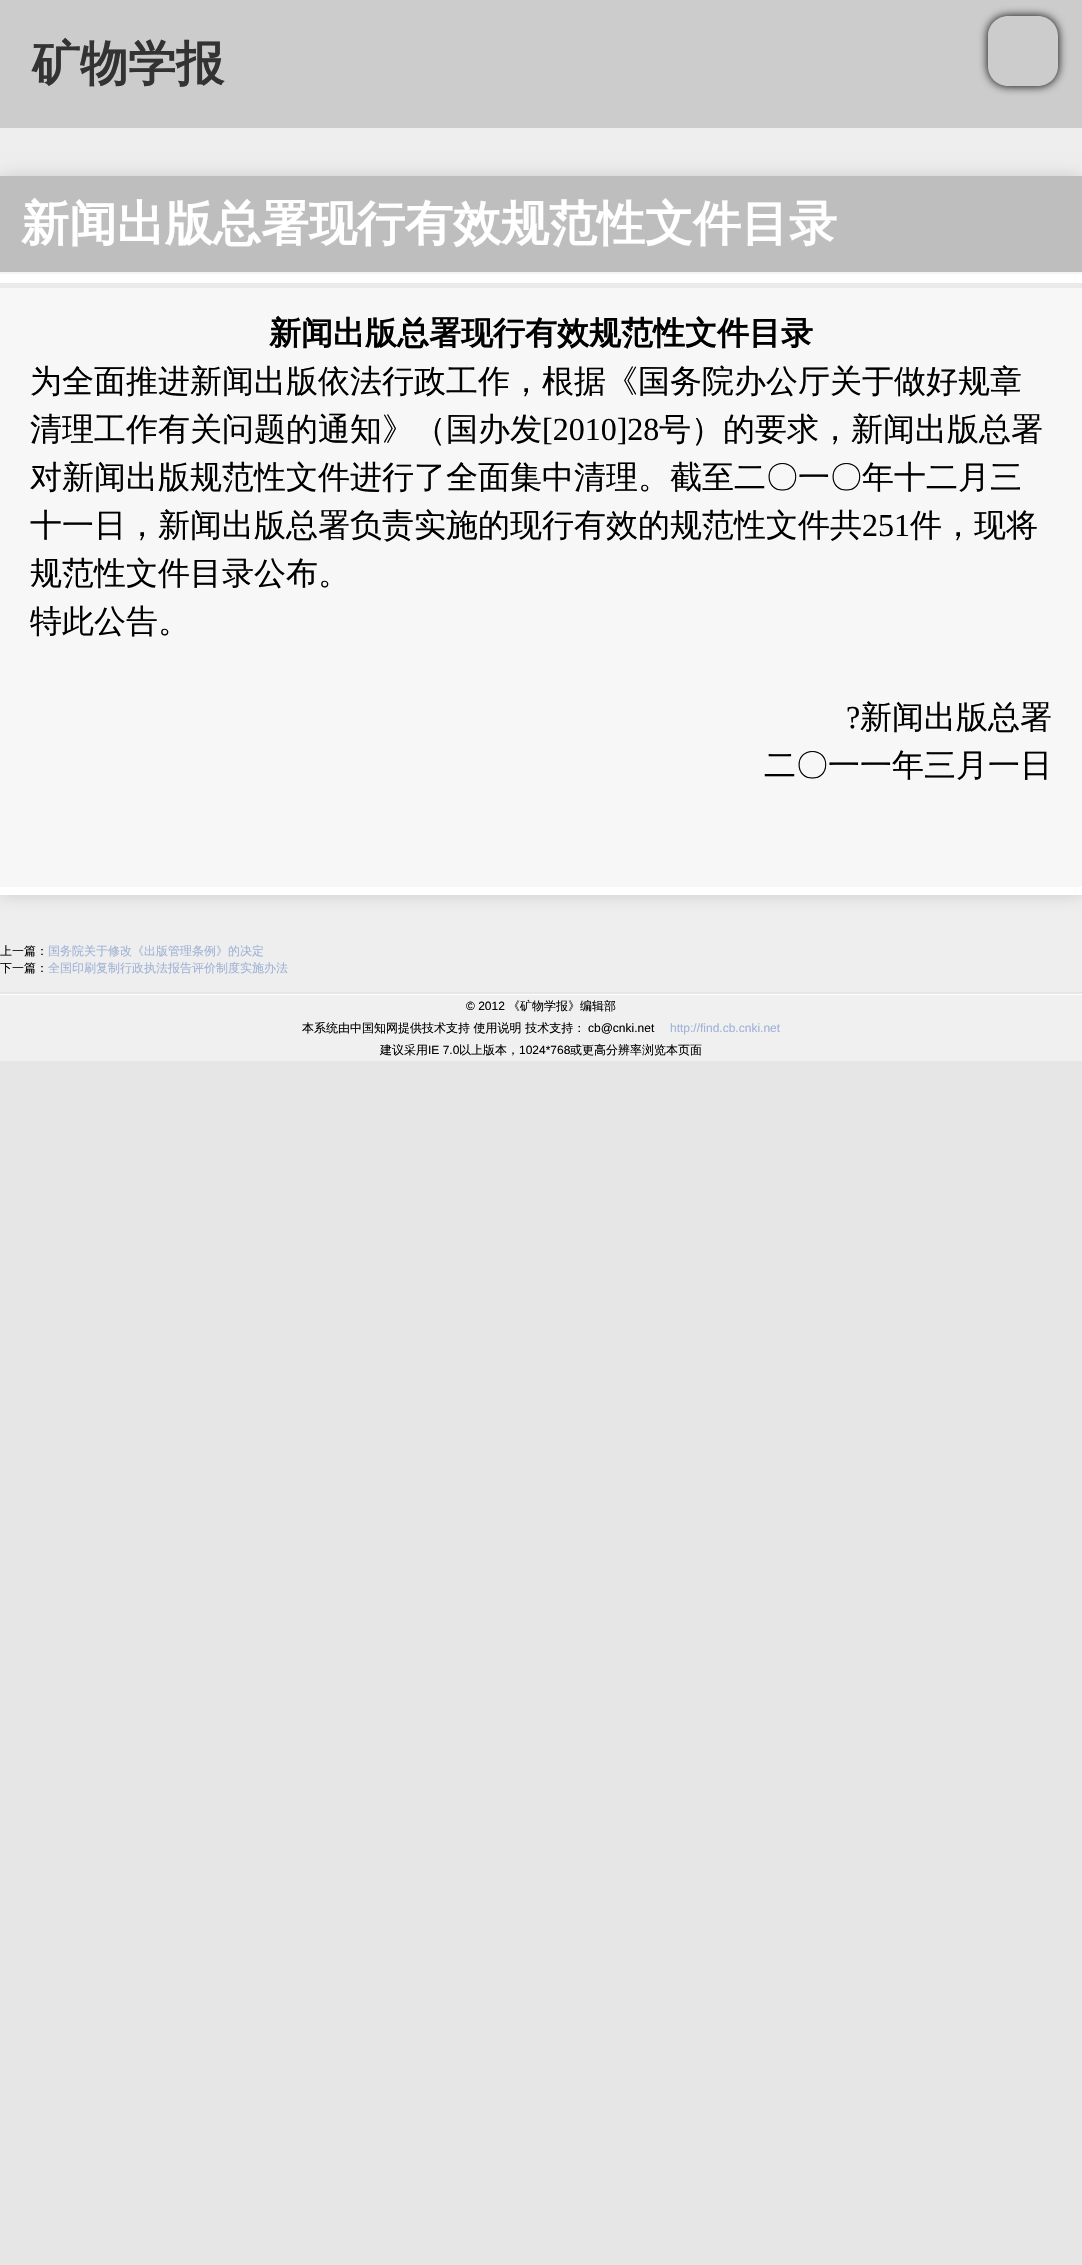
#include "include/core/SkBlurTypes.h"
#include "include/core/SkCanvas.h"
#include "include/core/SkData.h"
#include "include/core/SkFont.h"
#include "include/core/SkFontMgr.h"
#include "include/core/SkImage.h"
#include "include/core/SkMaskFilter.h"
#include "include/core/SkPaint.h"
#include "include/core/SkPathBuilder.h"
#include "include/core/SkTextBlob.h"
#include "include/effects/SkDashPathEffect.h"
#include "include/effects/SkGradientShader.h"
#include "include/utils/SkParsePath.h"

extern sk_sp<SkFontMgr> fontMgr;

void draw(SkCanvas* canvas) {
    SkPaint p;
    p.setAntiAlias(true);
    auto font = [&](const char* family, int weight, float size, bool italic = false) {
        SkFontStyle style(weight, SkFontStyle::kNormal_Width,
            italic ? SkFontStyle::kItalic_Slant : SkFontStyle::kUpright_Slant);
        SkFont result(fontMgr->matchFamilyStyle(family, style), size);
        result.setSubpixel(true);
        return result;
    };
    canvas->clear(0xFFE6E6E6);
    p.setColor(0xFFCCCCCC);
    canvas->drawRect(SkRect::MakeLTRB(0, 0, 1082, 128), p);
    auto font1 = font("WenQuanYi Zen Hei", 700, 48);
    p.setColor(0xFF333333);
    canvas->drawString("矿物学报", 32, 80, font1, p);
    canvas->save();
    canvas->clipPath(SkPathBuilder(SkPathFillType::kEvenOdd).moveTo(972, 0).lineTo(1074, 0).lineTo(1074, 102).lineTo(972, 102).close().moveTo(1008, 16).lineTo(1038, 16).cubicTo(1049, 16, 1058, 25, 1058, 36).lineTo(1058, 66).cubicTo(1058, 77, 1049, 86, 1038, 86).lineTo(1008, 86).cubicTo(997, 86, 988, 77, 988, 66).lineTo(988, 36).cubicTo(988, 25, 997, 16, 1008, 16).close().detach(), true);
    p.setColor(0xFF000000);
    p.setMaskFilter(SkMaskFilter::MakeBlur(kNormal_SkBlurStyle, 5));
    canvas->drawRoundRect(SkRect::MakeLTRB(988, 16, 1058, 86), 20, 20, p);
    p.setMaskFilter(nullptr);
    canvas->restore();
    p.setColor(0xFFEEEEEE);
    canvas->drawRect(SkRect::MakeLTRB(0, 128, 1082, 992), p);
    p.setColor(0xFFCCCCCC);
    p.setMaskFilter(SkMaskFilter::MakeBlur(kNormal_SkBlurStyle, 8));
    canvas->drawRect(SkRect::MakeLTRB(0, 176, 1082, 895), p);
    p.setMaskFilter(nullptr);
    p.setColor(0xFFBEBEBE);
    canvas->drawRect(SkRect::MakeLTRB(0, 176, 1082, 272), p);
    p.setColor(0xFFF5F5F5);
    canvas->drawRect(SkRect::MakeLTRB(0, 272, 1082, 274), p);
    p.setColor(0xFFFFFFFF);
    canvas->drawString("新闻出版总署现行有效规范性文件目录", 21, 240, font1, p);
    {
        const struct { float l, t, r, b; SkColor color; } items[] = {
            {0, 274, 1082, 895, 0xFFFFFFFF},
            {0, 288, 1082, 887, 0xFFF7F7F7},
            {0, 283, 1082, 288, 0xFFEAEAEA},
        };
        for (auto [l, t, r, b, color] : items) {
            p.setColor(color);
            canvas->drawRect(SkRect::MakeLTRB(l, t, r, b), p);
        }
    }
    auto font2 = font("WenQuanYi Zen Hei", 700, 32);
    p.setColor(0xFF000000);
    canvas->drawString("新闻出版总署现行有效规范性文件目录", 269, 344, font2, p);
    auto font3 = font("WenQuanYi Zen Hei", 500, 32);
    canvas->drawString("为全面推进新闻出版依法行政工作，根据《国务院办公厅关于做好规章", 30, 392, font3, p);
    canvas->drawString("清理工作有关问题的通知》（国办发", 30, 440, font3, p);
    auto font4 = font("Liberation Serif", 400, 32);
    canvas->drawString("[2010]28", 542, 440, font4, p);
    {
        const struct { const char* s; float x, y; } items[] = {
            {"号）的要求，新闻出版总署", 659, 440},
            {"对新闻出版规范性文件进行了全面集中清理。截至二〇一〇年十二月三", 30, 488},
            {"十一日，新闻出版总署负责实施的现行有效的规范性文件共", 30, 536},
        };
        for (auto [s, x, y] : items) {
            canvas->drawString(s, x, y, font3, p);
        }
    }
    canvas->drawString("251", 862, 536, font4, p);
    {
        const struct { const char* s; float x, y; } items[] = {
            {"件，现将", 910, 536},
            {"规范性文件目录公布。", 30, 584},
            {"特此公告。", 30, 632},
        };
        for (auto [s, x, y] : items) {
            canvas->drawString(s, x, y, font3, p);
        }
    }
    canvas->drawString("?", 846, 728, font4, p);
    canvas->drawString("新闻出版总署", 860, 728, font3, p);
    canvas->drawString("二〇一一年三月一日", 764, 776, font3, p);
    auto font5 = font("WenQuanYi Zen Hei", 500, 12);
    canvas->drawString("上一篇：", 0, 955, font5, p);
    p.setColor(0xFFA0B3D6);
    canvas->drawString("国务院关于修改《出版管理条例》的决定", 48, 955, font5, p);
    p.setColor(0xFF000000);
    canvas->drawString("下一篇：", 0, 972, font5, p);
    p.setColor(0xFFA0B3D6);
    canvas->drawString("全国印刷复制行政执法报告评价制度实施办法", 48, 972, font5, p);
    p.setColor(0xFFF0F0F0);
    canvas->drawRect(SkRect::MakeLTRB(0, 995, 1082, 1061), p);
    p.setColor(0xFFFFFFFF);
    canvas->drawRect(SkRect::MakeLTRB(0, 994, 1082, 995), p);
    auto font6 = font("Liberation Sans", 400, 12);
    p.setColor(0xFF000000);
    canvas->drawString("© 2012", 466, 1010, font6, p);
    canvas->drawString("《矿物学报》编辑部", 508, 1010, font5, p);
    canvas->drawString("本系统由中国知网提供技术支持 使用说明 技术支持：", 302, 1032, font5, p);
    canvas->drawString("cb@cnki.net", 588, 1032, font6, p);
    p.setColor(0xFFA0B3D6);
    canvas->drawString("http://find.cb.cnki.net", 670, 1032, font6, p);
    p.setColor(0xFF000000);
    canvas->drawString("建议采用", 380, 1054, font5, p);
    canvas->drawString("IE 7.0", 428, 1054, font6, p);
    canvas->drawString("以上版本，", 459, 1054, font5, p);
    canvas->drawString("1024*768", 519, 1054, font6, p);
    canvas->drawString("或更高分辨率浏览本页面", 570, 1054, font5, p);
}
